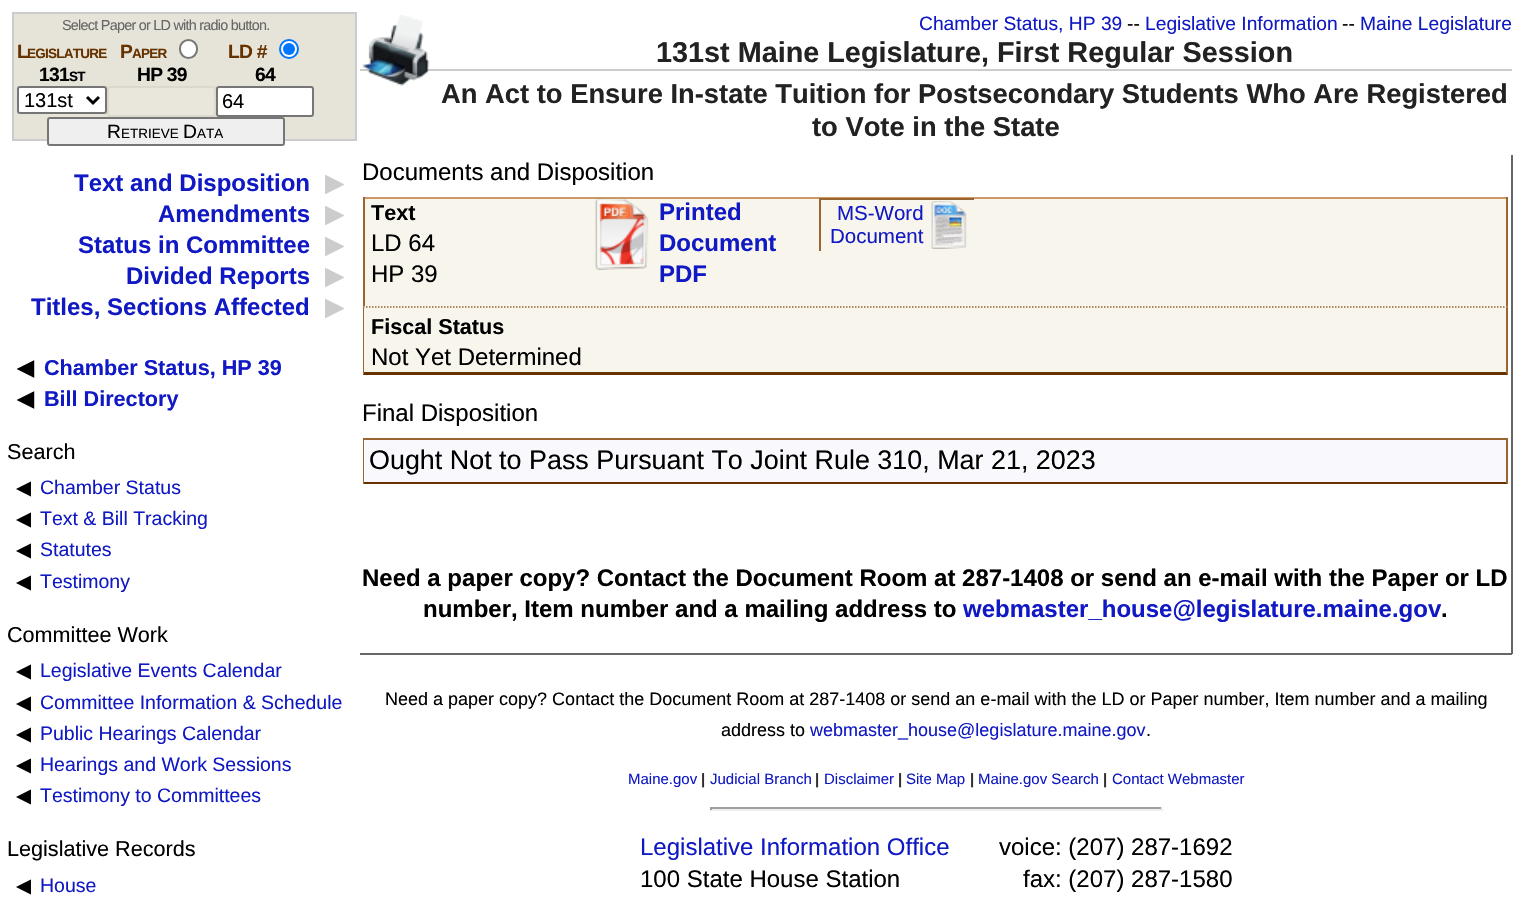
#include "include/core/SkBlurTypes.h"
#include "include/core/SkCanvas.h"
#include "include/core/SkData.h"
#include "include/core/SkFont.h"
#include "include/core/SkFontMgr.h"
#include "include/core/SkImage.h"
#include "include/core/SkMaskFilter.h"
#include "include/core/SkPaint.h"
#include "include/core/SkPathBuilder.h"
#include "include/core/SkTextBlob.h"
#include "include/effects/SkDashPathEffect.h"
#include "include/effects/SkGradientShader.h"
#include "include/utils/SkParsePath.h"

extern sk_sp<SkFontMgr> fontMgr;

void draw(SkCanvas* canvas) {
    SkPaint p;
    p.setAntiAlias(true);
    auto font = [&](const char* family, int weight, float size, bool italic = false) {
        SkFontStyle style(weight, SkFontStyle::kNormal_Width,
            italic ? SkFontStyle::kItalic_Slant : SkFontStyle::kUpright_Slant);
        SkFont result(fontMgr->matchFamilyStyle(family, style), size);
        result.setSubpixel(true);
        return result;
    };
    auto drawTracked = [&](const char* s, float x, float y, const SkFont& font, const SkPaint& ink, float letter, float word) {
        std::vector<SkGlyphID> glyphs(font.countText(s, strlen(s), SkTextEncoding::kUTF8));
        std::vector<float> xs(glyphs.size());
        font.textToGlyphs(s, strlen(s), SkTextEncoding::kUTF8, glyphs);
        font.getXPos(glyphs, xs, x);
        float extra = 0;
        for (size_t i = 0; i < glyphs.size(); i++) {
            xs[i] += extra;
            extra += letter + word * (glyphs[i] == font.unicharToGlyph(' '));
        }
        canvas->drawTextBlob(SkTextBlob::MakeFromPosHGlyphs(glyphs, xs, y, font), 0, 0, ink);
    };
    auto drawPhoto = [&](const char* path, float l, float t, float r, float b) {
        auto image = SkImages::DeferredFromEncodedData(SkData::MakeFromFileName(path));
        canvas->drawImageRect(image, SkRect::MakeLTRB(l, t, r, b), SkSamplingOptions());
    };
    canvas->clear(0xFFFFFFFF);
    p.setColor(0xFFE6E3D8);
    canvas->drawRect(SkRect::MakeLTRB(13, 13, 356, 140), p);
    p.setStyle(SkPaint::kStroke_Style);
    p.setStrokeWidth(2);
    p.setColor(0xFFCCCCCC);
    canvas->drawRect(SkRect::MakeLTRB(13, 13, 356, 140), p);
    auto font1 = font("Liberation Sans", 400, 14.4f);
    p.setStyle(SkPaint::kFill_Style);
    p.setColor(0xFF666666);
    drawTracked("Select Paper or LD with radio button.", 62, 30, font1, p, -0.75f, 0);
    auto font2 = font("Liberation Sans", 700, 19.25f);
    p.setColor(0xFF663300);
    drawTracked("L", 17, 58, font2, p, -0.75f, 0);
    auto font3 = font("Liberation Sans", 700, 13.5f);
    drawTracked("EGISLATURE", 27, 58, font3, p, -0.75f, 0);
    p.setColor(0xFF000000);
    drawTracked("131", 39, 81, font2, p, -0.75f, 0);
    drawTracked("ST", 69, 81, font3, p, -0.75f, 0);
    p.setColor(0xFFFFFFFF);
    canvas->drawRoundRect(SkRect::MakeLTRB(18, 87, 106, 113), 2, 2, p);
    p.setStyle(SkPaint::kStroke_Style);
    p.setColor(0xFF767676);
    canvas->drawRoundRect(SkRect::MakeLTRB(18, 87, 106, 113), 2, 2, p);
    p.setStrokeWidth(3);
    p.setColor(0xFF000000);
    canvas->drawPath(SkPathBuilder().moveTo(87, 97).lineTo(93, 103).lineTo(99, 97).detach(), p);
    auto font4 = font("Liberation Sans", 400, 20);
    p.setStyle(SkPaint::kFill_Style);
    canvas->drawString("131st", 24, 107, font4, p);
    p.setColor(0xFF663300);
    drawTracked("P", 120, 58, font2, p, -0.75f, 0);
    drawTracked("APER", 132, 58, font3, p, -0.75f, 0);
    p.setColor(0xFFFFFFFF);
    canvas->drawRoundRect(SkRect::MakeLTRB(180, 40, 197, 58), 8.5f, 8.5f, p);
    p.setStyle(SkPaint::kStroke_Style);
    p.setStrokeWidth(2);
    p.setColor(0xFF767676);
    canvas->drawRoundRect(SkRect::MakeLTRB(180, 40, 197, 58), 8.5f, 8.5f, p);
    p.setStyle(SkPaint::kFill_Style);
    p.setColor(0xFF000000);
    drawTracked("HP 39", 137, 81, font2, p, -0.75f, 0);
    p.setColor(0xFFE9E6DC);
    canvas->drawRoundRect(SkRect::MakeLTRB(108, 87, 215, 116), 2, 2, p);
    p.setStyle(SkPaint::kStroke_Style);
    p.setColor(0xFFDBD8CE);
    canvas->drawRoundRect(SkRect::MakeLTRB(108, 87, 215, 116), 2, 2, p);
    p.setStyle(SkPaint::kFill_Style);
    p.setColor(0xFF663300);
    drawTracked("LD #", 228, 58, font2, p, -0.75f, 0);
    p.setColor(0xFFFFFFFF);
    canvas->drawCircle(289, 49, 9, p);
    p.setStyle(SkPaint::kStroke_Style);
    p.setColor(0xFF0075FF);
    canvas->drawCircle(289, 49, 9, p);
    p.setStyle(SkPaint::kFill_Style);
    canvas->drawCircle(289, 49, 6, p);
    p.setColor(0xFF000000);
    drawTracked("64", 255, 81, font2, p, -0.75f, 0);
    p.setColor(0xFFFFFFFF);
    canvas->drawRoundRect(SkRect::MakeLTRB(217, 87, 313, 116), 2, 2, p);
    p.setStyle(SkPaint::kStroke_Style);
    p.setColor(0xFF767676);
    canvas->drawRoundRect(SkRect::MakeLTRB(217, 87, 313, 116), 2, 2, p);
    p.setStyle(SkPaint::kFill_Style);
    p.setColor(0xFF000000);
    canvas->drawString("64", 222, 108, font4, p);
    p.setColor(0xFFEFEFEF);
    canvas->drawRoundRect(SkRect::MakeLTRB(48, 118, 284, 145), 2, 2, p);
    p.setStyle(SkPaint::kStroke_Style);
    p.setColor(0xFF767676);
    canvas->drawRoundRect(SkRect::MakeLTRB(48, 118, 284, 145), 2, 2, p);
    auto font5 = font("Liberation Sans", 400, 19.25f);
    p.setStyle(SkPaint::kFill_Style);
    p.setColor(0xFF000000);
    canvas->drawString("R", 107, 138, font5, p);
    auto font6 = font("Liberation Sans", 400, 13.5f);
    canvas->drawString("ETRIEVE", 121, 138, font6, p);
    canvas->drawString("D", 183, 138, font5, p);
    canvas->drawString("ATA", 197, 138, font6, p);
    p.setColor(0xFFCCCCCC);
    canvas->drawRect(SkRect::MakeLTRB(360, 69, 1512, 71), p);
    drawPhoto("media/1.png", 362, 15, 430, 86);
    p.setColor(0xFF1019C3);
    canvas->drawString("Chamber Status, HP 39", 919, 30, font5, p);
    p.setColor(0xFF000000);
    canvas->drawString("--", 1127, 30, font5, p);
    p.setColor(0xFF1019C3);
    canvas->drawString("Legislative Information", 1145, 30, font5, p);
    p.setColor(0xFF000000);
    canvas->drawString("--", 1342, 30, font5, p);
    p.setColor(0xFF1019C3);
    canvas->drawString("Maine Legislature", 1360, 30, font5, p);
    auto font7 = font("Liberation Sans", 700, 28.8f);
    p.setColor(0xFF222222);
    canvas->drawString("131st Maine Legislature, First Regular Session", 656, 62, font7, p);
    auto font8 = font("Liberation Sans", 700, 27.35f);
    canvas->drawString("An Act to Ensure In-state Tuition for Postsecondary Students Who Are Registered", 441, 103, font8, p);
    canvas->drawString("to Vote in the State", 812, 136, font8, p);
    auto font9 = font("Liberation Sans", 700, 24);
    p.setColor(0xFF1019C3);
    canvas->drawString("Text and Disposition", 74, 191, font9, p);
    auto font10 = font("DejaVu Sans", 700, 24);
    p.setColor(0xFFCCCCCC);
    canvas->drawString("▶", 325, 191, font10, p);
    p.setColor(0xFF1019C3);
    canvas->drawString("Amendments", 158, 222, font9, p);
    p.setColor(0xFFCCCCCC);
    canvas->drawString("▶", 325, 222, font10, p);
    p.setColor(0xFF1019C3);
    canvas->drawString("Status in Committee", 78, 253, font9, p);
    p.setColor(0xFFCCCCCC);
    canvas->drawString("▶", 325, 253, font10, p);
    p.setColor(0xFF1019C3);
    canvas->drawString("Divided Reports", 126, 284, font9, p);
    p.setColor(0xFFCCCCCC);
    canvas->drawString("▶", 325, 284, font10, p);
    p.setColor(0xFF1019C3);
    canvas->drawString("Titles, Sections Affected", 31, 315, font9, p);
    p.setColor(0xFFCCCCCC);
    canvas->drawString("▶", 325, 315, font10, p);
    auto font11 = font("DejaVu Sans", 700, 21.6f);
    p.setColor(0xFF000000);
    canvas->drawString("◀", 17, 375, font11, p);
    auto font12 = font("Liberation Sans", 700, 21.6f);
    p.setColor(0xFF1019C3);
    canvas->drawString("Chamber Status, HP 39", 44, 375, font12, p);
    p.setColor(0xFF000000);
    canvas->drawString("◀", 17, 406, font11, p);
    p.setColor(0xFF1019C3);
    canvas->drawString("Bill Directory", 44, 406, font12, p);
    auto font13 = font("Liberation Sans", 400, 21.6f);
    p.setColor(0xFF000000);
    canvas->drawString("Search", 7, 459, font13, p);
    auto font14 = font("DejaVu Sans", 400, 19.5f);
    canvas->drawString("◀", 16, 494, font14, p);
    auto font15 = font("Liberation Sans", 400, 19.5f);
    p.setColor(0xFF1019C3);
    canvas->drawString("Chamber Status", 40, 494, font15, p);
    p.setColor(0xFF000000);
    canvas->drawString("◀", 16, 525, font14, p);
    p.setColor(0xFF1019C3);
    canvas->drawString("Text & Bill Tracking", 40, 525, font15, p);
    p.setColor(0xFF000000);
    canvas->drawString("◀", 16, 556, font14, p);
    p.setColor(0xFF1019C3);
    canvas->drawString("Statutes", 40, 556, font15, p);
    p.setColor(0xFF000000);
    canvas->drawString("◀", 16, 588, font14, p);
    p.setColor(0xFF1019C3);
    canvas->drawString("Testimony", 40, 588, font15, p);
    p.setColor(0xFF000000);
    canvas->drawString("Committee Work", 7, 642, font13, p);
    canvas->drawString("◀", 16, 677, font14, p);
    p.setColor(0xFF1019C3);
    canvas->drawString("Legislative Events Calendar", 40, 677, font15, p);
    p.setColor(0xFF000000);
    canvas->drawString("◀", 16, 709, font14, p);
    p.setColor(0xFF1019C3);
    canvas->drawString("Committee Information & Schedule", 40, 709, font15, p);
    p.setColor(0xFF000000);
    canvas->drawString("◀", 16, 740, font14, p);
    p.setColor(0xFF1019C3);
    canvas->drawString("Public Hearings Calendar", 40, 740, font15, p);
    p.setColor(0xFF000000);
    canvas->drawString("◀", 16, 771, font14, p);
    p.setColor(0xFF1019C3);
    canvas->drawString("Hearings and Work Sessions", 40, 771, font15, p);
    p.setColor(0xFF000000);
    canvas->drawString("◀", 16, 802, font14, p);
    p.setColor(0xFF1019C3);
    canvas->drawString("Testimony to Committees", 40, 802, font15, p);
    p.setColor(0xFF000000);
    canvas->drawString("Legislative Records", 7, 856, font13, p);
    canvas->drawString("◀", 16, 892, font14, p);
    p.setColor(0xFF1019C3);
    canvas->drawString("House", 40, 892, font15, p);
    p.setColor(0xFF666666);
    canvas->drawRect(SkRect::MakeLTRB(1511, 155, 1513, 654), p);
    canvas->drawRect(SkRect::MakeLTRB(360, 653, 1512, 655), p);
    auto font16 = font("Liberation Sans", 400, 24);
    p.setColor(0xFF000000);
    canvas->drawString("Documents and Disposition", 362, 180, font16, p);
    {
        const struct { float l, t, r, b; SkColor color; } items[] = {
            {365, 199, 1506, 306, 0xFFF8F5ED},
            {363, 197, 1508, 199, 0xFFCC9966},
            {1506, 197, 1508, 306, 0xFF996633},
            {363, 197, 365, 306, 0xFF996633},
        };
        for (auto [l, t, r, b, color] : items) {
            p.setColor(color);
            canvas->drawRect(SkRect::MakeLTRB(l, t, r, b), p);
        }
    }
    p.setColor(0xFF000000);
    canvas->drawString("Text", 371, 220, font12, p);
    canvas->drawString("LD 64", 371, 251, font16, p);
    canvas->drawString("HP 39", 371, 282, font16, p);
    drawPhoto("media/2.png", 595, 198, 649, 270);
    p.setColor(0xFF1019C3);
    {
        const struct { const char* s; float x, y; } items[] = {
            {"Printed", 659, 220},
            {"Document", 659, 251},
            {"PDF", 659, 282},
        };
        for (auto [s, x, y] : items) {
            canvas->drawString(s, x, y, font9, p);
        }
    }
    drawPhoto("media/3.png", 931, 201, 967, 249);
    p.setColor(0xFF996633);
    canvas->drawRect(SkRect::MakeLTRB(819, 198, 974, 200), p);
    canvas->drawRect(SkRect::MakeLTRB(819, 198, 821, 251), p);
    auto font17 = font("Liberation Sans", 400, 20.5f);
    p.setColor(0xFF1019C3);
    canvas->drawString("MS-Word", 837, 220, font17, p);
    canvas->drawString("Document", 830, 243, font17, p);
    p.setColor(0xFFF8F5ED);
    canvas->drawRect(SkRect::MakeLTRB(363, 306, 1508, 375), p);
    p.setStyle(SkPaint::kStroke_Style);
    p.setStrokeWidth(1.5f);
    p.setColor(0xFF996633);
    p.setPathEffect(SkDashPathEffect::Make({{1.5f, 1.5f}}, 0));
    canvas->drawPath(SkPathBuilder().moveTo(363, 307).lineTo(1507.5f, 307).detach(), p);
    p.setPathEffect(nullptr);
    p.setStyle(SkPaint::kFill_Style);
    canvas->drawPath(SkPathBuilder().moveTo(1508, 306).lineTo(1508, 375).lineTo(1506, 372).lineTo(1506, 308).close().detach(), p);
    p.setColor(0xFF663300);
    canvas->drawPath(SkPathBuilder().moveTo(1508, 375).lineTo(363, 375).lineTo(364, 372).lineTo(1506, 372).close().detach(), p);
    p.setColor(0xFF996633);
    canvas->drawPath(SkPathBuilder().moveTo(363, 375).lineTo(363, 306).lineTo(364, 308).lineTo(364, 372).close().detach(), p);
    p.setColor(0xFF000000);
    canvas->drawString("Fiscal Status", 371, 334, font12, p);
    canvas->drawString("Not Yet Determined", 371, 365, font16, p);
    canvas->drawString("Final Disposition", 362, 421, font16, p);
    p.setColor(0xFFF8F8FD);
    canvas->drawRect(SkRect::MakeLTRB(365, 440, 1506, 482), p);
    p.setColor(0xFF996633);
    canvas->drawRect(SkRect::MakeLTRB(363, 438, 1508, 440), p);
    canvas->drawPath(SkPathBuilder().moveTo(1508, 438).lineTo(1508, 484).lineTo(1506, 482).lineTo(1506, 440).close().detach(), p);
    p.setColor(0xFF663300);
    canvas->drawPath(SkPathBuilder().moveTo(1508, 484).lineTo(363, 484).lineTo(364, 482).lineTo(1506, 482).close().detach(), p);
    p.setColor(0xFF996633);
    canvas->drawPath(SkPathBuilder().moveTo(363, 484).lineTo(363, 438).lineTo(364, 440).lineTo(364, 482).close().detach(), p);
    auto font18 = font("Liberation Sans", 400, 26.9f);
    p.setColor(0xFF000000);
    canvas->drawString("Ought Not to Pass Pursuant To Joint Rule 310, Mar 21, 2023", 369, 469, font18, p);
    canvas->drawString("Need a paper copy? Contact the Document Room at 287-1408 or send an e-mail with the Paper or LD", 362, 586, font9, p);
    canvas->drawString("number, Item number and a mailing address to", 423, 617, font9, p);
    p.setColor(0xFF1019C3);
    canvas->drawString("webmaster_house@legislature.maine.gov", 963, 617, font9, p);
    p.setColor(0xFF000000);
    canvas->drawString(".", 1441, 617, font9, p);
    auto font19 = font("Liberation Sans", 400, 18);
    canvas->drawString("Need a paper copy? Contact the Document Room at 287-1408 or send an e-mail with the LD or Paper number, Item number and a mailing", 385, 705, font19, p);
    canvas->drawString("address to", 721, 736, font19, p);
    p.setColor(0xFF1019C3);
    canvas->drawString("webmaster_house@legislature.maine.gov", 810, 736, font19, p);
    p.setColor(0xFF000000);
    canvas->drawString(".", 1146, 736, font19, p);
    auto font20 = font("Liberation Sans", 400, 15);
    p.setColor(0xFF1019C3);
    canvas->drawString("Maine.gov", 628, 784, font20, p);
    auto font21 = font("Liberation Sans", 700, 15);
    p.setColor(0xFF303030);
    canvas->drawString("|", 701, 784, font21, p);
    p.setColor(0xFF1019C3);
    canvas->drawString("Judicial Branch", 710, 784, font20, p);
    p.setColor(0xFF303030);
    canvas->drawString("|", 815, 784, font21, p);
    p.setColor(0xFF1019C3);
    canvas->drawString("Disclaimer", 824, 784, font20, p);
    p.setColor(0xFF303030);
    canvas->drawString("|", 898, 784, font21, p);
    p.setColor(0xFF1019C3);
    canvas->drawString("Site Map", 906, 784, font20, p);
    p.setColor(0xFF303030);
    canvas->drawString("|", 970, 784, font21, p);
    p.setColor(0xFF1019C3);
    canvas->drawString("Maine.gov Search", 978, 784, font20, p);
    p.setColor(0xFF303030);
    canvas->drawString("|", 1103, 784, font21, p);
    p.setColor(0xFF1019C3);
    canvas->drawString("Contact Webmaster", 1112, 784, font20, p);
    {
        const struct { float l, t, r, b; SkColor color; } items[] = {
            {710, 807, 1163, 809, 0xFF9F9F9F},
            {1161, 807, 1163, 810, 0xFFEEEEEE},
            {710, 809, 1163, 811, 0xFFEEEEEE},
            {710, 807, 712, 810, 0xFF9F9F9F},
        };
        for (auto [l, t, r, b, color] : items) {
            p.setColor(color);
            canvas->drawRect(SkRect::MakeLTRB(l, t, r, b), p);
        }
    }
    p.setColor(0xFF1019C3);
    canvas->drawString("Legislative Information Office", 640, 855, font16, p);
    p.setColor(0xFF000000);
    {
        const struct { const char* s; float x, y; } items[] = {
            {"100 State House Station", 640, 887},
            {"voice: (207) 287-1692", 999, 855},
            {"fax: (207) 287-1580", 1023, 887},
        };
        for (auto [s, x, y] : items) {
            canvas->drawString(s, x, y, font16, p);
        }
    }
}
